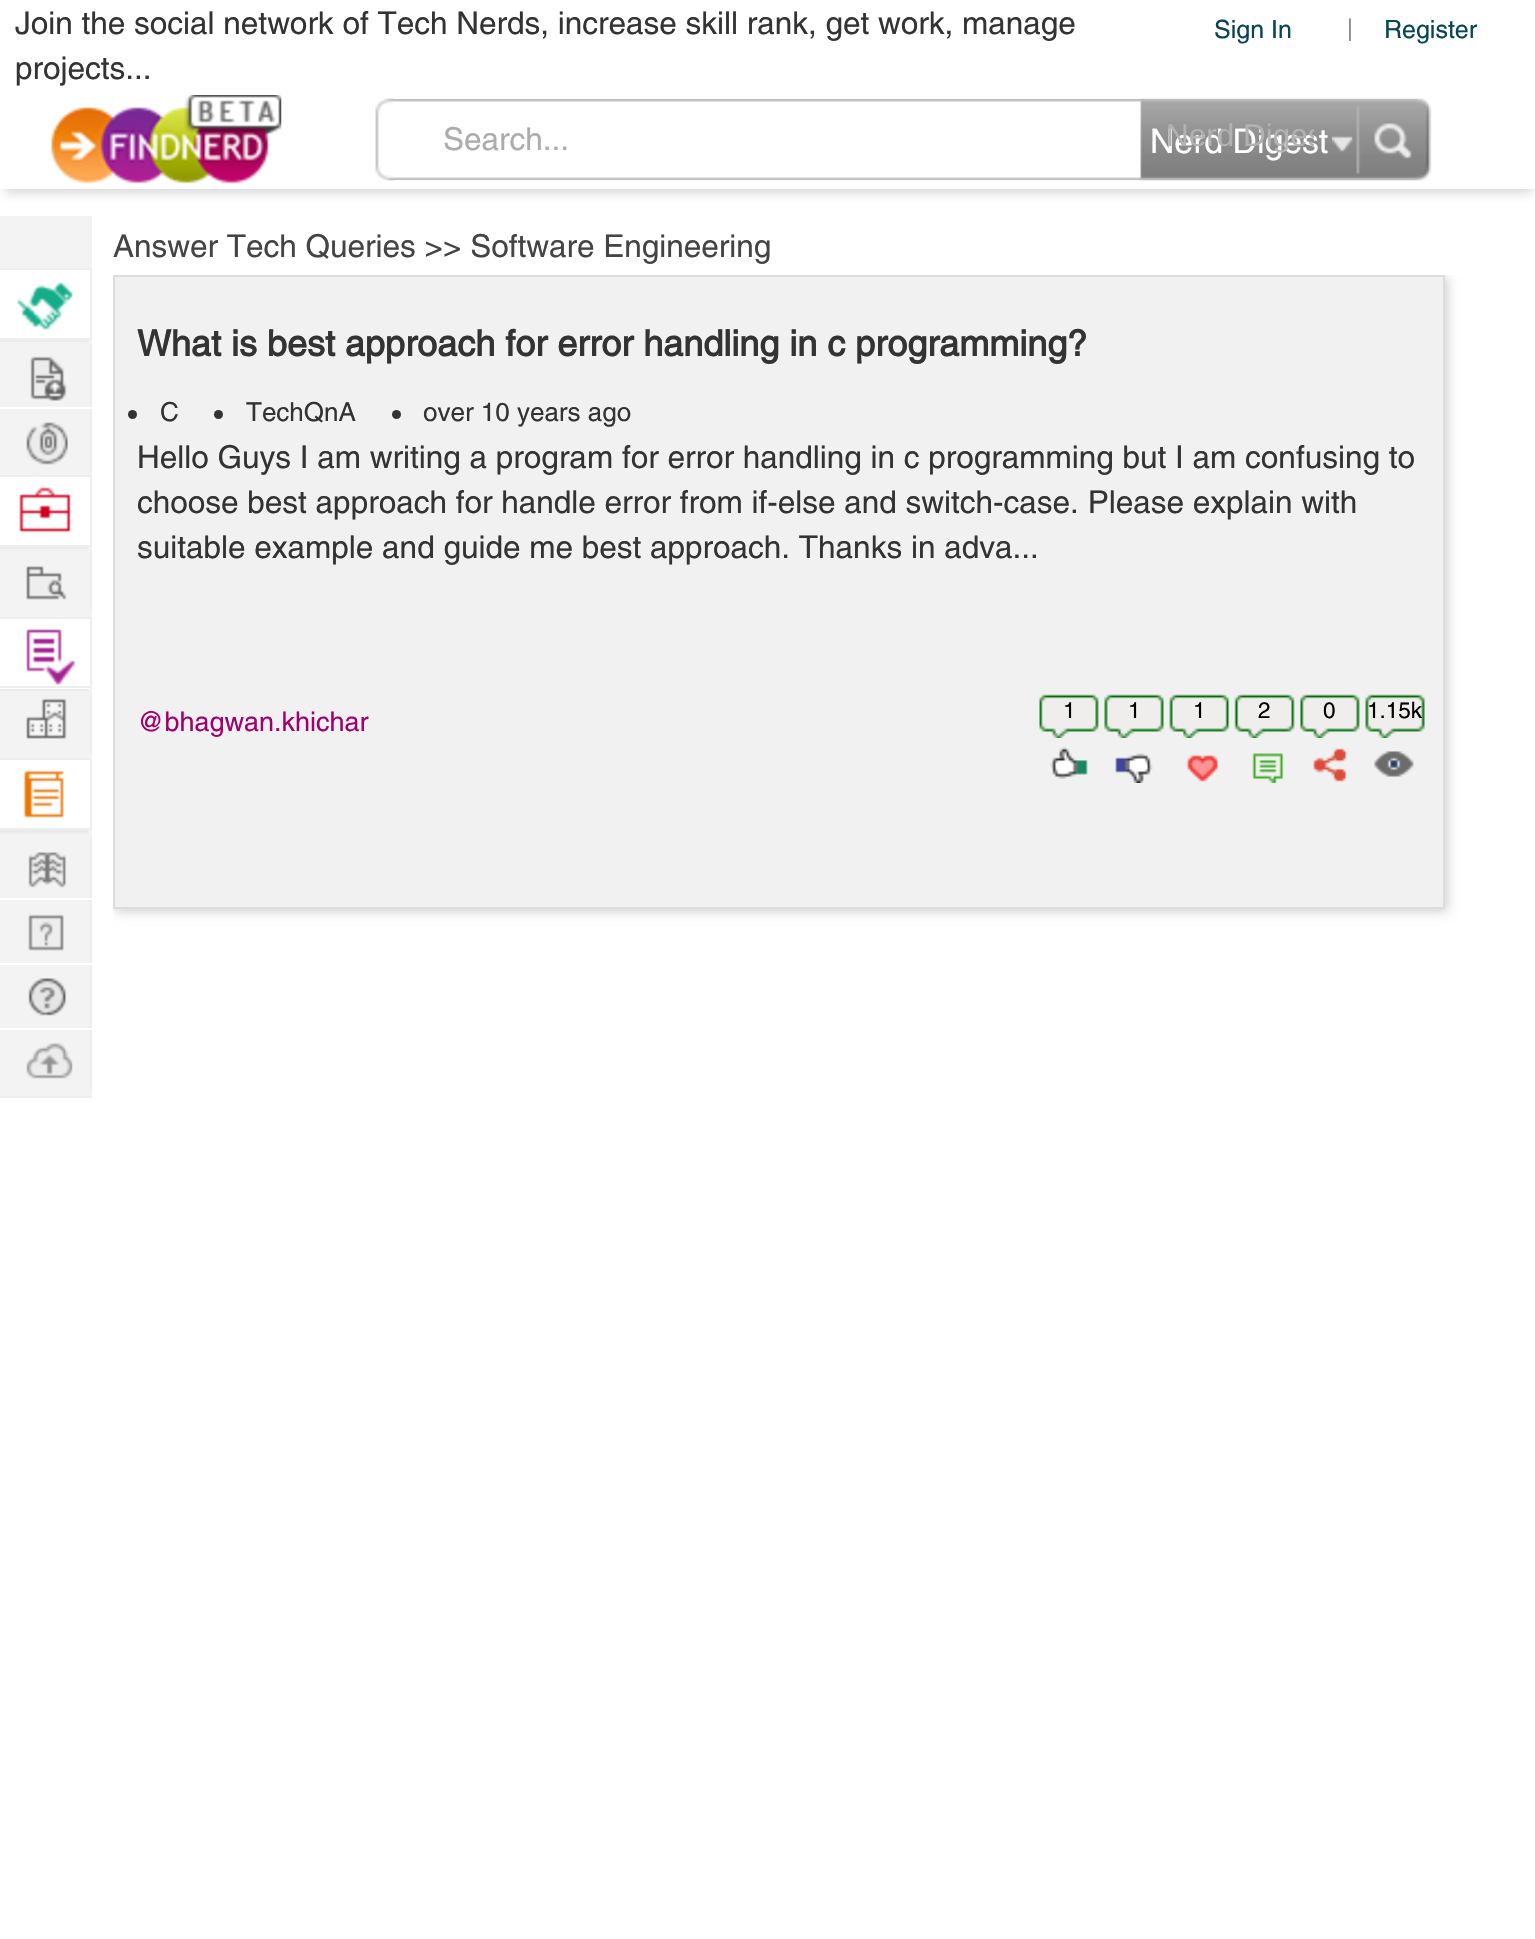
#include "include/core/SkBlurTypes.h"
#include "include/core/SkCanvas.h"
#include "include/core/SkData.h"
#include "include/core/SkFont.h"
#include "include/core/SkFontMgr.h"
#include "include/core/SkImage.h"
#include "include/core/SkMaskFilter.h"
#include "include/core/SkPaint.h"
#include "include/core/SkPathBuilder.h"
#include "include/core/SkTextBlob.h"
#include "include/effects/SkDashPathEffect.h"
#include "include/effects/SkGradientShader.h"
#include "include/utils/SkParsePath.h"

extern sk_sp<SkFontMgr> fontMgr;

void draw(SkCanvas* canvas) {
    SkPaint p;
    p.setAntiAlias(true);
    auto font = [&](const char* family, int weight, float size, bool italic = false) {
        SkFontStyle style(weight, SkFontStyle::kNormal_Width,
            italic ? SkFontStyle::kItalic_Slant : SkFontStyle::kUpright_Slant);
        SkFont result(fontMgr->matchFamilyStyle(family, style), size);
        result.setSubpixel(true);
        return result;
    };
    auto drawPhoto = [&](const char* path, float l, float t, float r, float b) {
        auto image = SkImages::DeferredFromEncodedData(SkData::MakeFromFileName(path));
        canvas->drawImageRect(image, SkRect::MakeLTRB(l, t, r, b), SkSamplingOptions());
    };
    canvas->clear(0xFFFFFFFF);
    canvas->save();
    canvas->clipRect(SkRect::MakeLTRB(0, 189, 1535, 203));
    p.setColor(0xFFDDDDDD);
    p.setMaskFilter(SkMaskFilter::MakeBlur(kNormal_SkBlurStyle, 4.5f));
    canvas->drawRect(SkRect::MakeLTRB(5, 14, 1532, 194), p);
    p.setMaskFilter(nullptr);
    canvas->restore();
    auto font1 = font("Helvetica", 400, 31.5f);
    p.setColor(0xFF333333);
    canvas->drawString("Join the social network of Tech Nerds, increase skill rank, get work, manage", 15, 34, font1, p);
    auto font2 = font("Helvetica", 400, 25);
    p.setColor(0xFF074456);
    canvas->drawString("Sign In", 1214, 38, font2, p);
    auto font3 = font("Helvetica", 400, 22.5f);
    p.setColor(0xFF828282);
    canvas->drawString("|", 1347, 36, font3, p);
    p.setColor(0xFF074456);
    canvas->drawString("Register", 1384, 38, font2, p);
    p.setColor(0xFF333333);
    canvas->drawString("projects...", 15, 79, font1, p);
    drawPhoto("media/1.png", 51, 95, 282, 184);
    drawPhoto("media/3.png", 389, 99, 1418, 180);
    drawPhoto("media/2.png", 375, 98, 394, 181);
    p.setColor(0xFFADABAB);
    canvas->drawString("Search...", 443, 150, font1, p);
    drawPhoto("media/4.png", 1140, 98, 1432, 181);
    auto font4 = font("Helvetica", 400, 33.75f);
    p.setColor(0xFFFFFFFF);
    canvas->drawString("Nerd Digest", 1150, 153, font4, p);
    canvas->save();
    canvas->clipRect(SkRect::MakeLTRB(1166, 115, 1314, 155));
    auto font5 = font("Liberation Sans", 400, 31.5f);
    p.setColor(0xFFB2B2B2);
    canvas->drawString("Nerd Diges", 1166, 146, font5, p);
    canvas->restore();
    drawPhoto("media/5.png", 1332, 136, 1353, 152);
    drawPhoto("media/6.png", 1374, 123, 1412, 159);
    p.setColor(0xFFF3F3F3);
    canvas->drawRect(SkRect::MakeLTRB(0, 216, 92, 1094), p);
    p.setColor(0xFFEEEEEE);
    canvas->drawRect(SkRect::MakeLTRB(0, 1096, 92, 1098), p);
    p.setColor(0x80DDDDDD);
    p.setMaskFilter(SkMaskFilter::MakeBlur(kNormal_SkBlurStyle, 1));
    canvas->drawRect(SkRect::MakeLTRB(-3, 270, 88, 342), p);
    p.setMaskFilter(nullptr);
    {
        const struct { float l, t, r, b; SkColor color; } items[] = {
            {0, 270, 90, 338, 0xFFFFFFFF},
            {0, 268, 92, 270, 0xFFEEEEEE},
            {90, 268, 92, 340, 0xFFEEEEEE},
            {0, 338, 92, 340, 0xFFEEEEEE},
        };
        for (auto [l, t, r, b, color] : items) {
            p.setColor(color);
            canvas->drawRect(SkRect::MakeLTRB(l, t, r, b), p);
        }
    }
    drawPhoto("media/7.png", 17, 282, 73, 330);
    canvas->drawRect(SkRect::MakeLTRB(90, 344, 92, 475), p);
    p.setColor(0xFFFFFFFF);
    canvas->drawRect(SkRect::MakeLTRB(0, 407, 92, 409), p);
    drawPhoto("media/8.png", 30, 356, 67, 401);
    p.setColor(0xFFF3F3F3);
    canvas->drawRect(SkRect::MakeLTRB(90, 473, 92, 475), p);
    drawPhoto("media/9.png", 26, 422, 68, 465);
    p.setColor(0x80DDDDDD);
    p.setMaskFilter(SkMaskFilter::MakeBlur(kNormal_SkBlurStyle, 1));
    canvas->drawRect(SkRect::MakeLTRB(-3, 477, 88, 549), p);
    p.setMaskFilter(nullptr);
    {
        const struct { float l, t, r, b; SkColor color; } items[] = {
            {0, 477, 90, 545, 0xFFFFFFFF},
            {0, 475, 92, 477, 0xFFEEEEEE},
            {90, 475, 92, 547, 0xFFEEEEEE},
            {0, 545, 92, 547, 0xFFEEEEEE},
        };
        for (auto [l, t, r, b, color] : items) {
            p.setColor(color);
            canvas->drawRect(SkRect::MakeLTRB(l, t, r, b), p);
        }
    }
    drawPhoto("media/10.png", 19, 487, 71, 533);
    canvas->drawRect(SkRect::MakeLTRB(90, 551, 92, 617), p);
    p.setColor(0xFFF3F3F3);
    canvas->drawRect(SkRect::MakeLTRB(90, 614, 92, 616), p);
    drawPhoto("media/11.png", 26, 566, 67, 600);
    p.setColor(0x80DDDDDD);
    p.setMaskFilter(SkMaskFilter::MakeBlur(kNormal_SkBlurStyle, 1));
    canvas->drawRect(SkRect::MakeLTRB(-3, 619, 88, 691), p);
    p.setMaskFilter(nullptr);
    {
        const struct { float l, t, r, b; SkColor color; } items[] = {
            {0, 619, 90, 689, 0xFFFFFFFF},
            {0, 617, 92, 619, 0xFFEEEEEE},
            {90, 617, 92, 689, 0xFFEEEEEE},
            {0, 686, 92, 688, 0xFFEEEEEE},
        };
        for (auto [l, t, r, b, color] : items) {
            p.setColor(color);
            canvas->drawRect(SkRect::MakeLTRB(l, t, r, b), p);
        }
    }
    drawPhoto("media/12.png", 26, 629, 76, 685);
    canvas->drawRect(SkRect::MakeLTRB(90, 693, 92, 758), p);
    p.setColor(0xFFF3F3F3);
    canvas->drawRect(SkRect::MakeLTRB(90, 756, 92, 758), p);
    drawPhoto("media/13.png", 26, 698, 67, 739);
    p.setColor(0x80DDDDDD);
    p.setMaskFilter(SkMaskFilter::MakeBlur(kNormal_SkBlurStyle, 1));
    canvas->drawRect(SkRect::MakeLTRB(-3, 761, 88, 833), p);
    p.setMaskFilter(nullptr);
    {
        const struct { float l, t, r, b; SkColor color; } items[] = {
            {0, 760, 90, 828, 0xFFFFFFFF},
            {0, 758, 92, 760, 0xFFEEEEEE},
            {90, 758, 92, 830, 0xFFEEEEEE},
            {0, 828, 92, 830, 0xFFEEEEEE},
        };
        for (auto [l, t, r, b, color] : items) {
            p.setColor(color);
            canvas->drawRect(SkRect::MakeLTRB(l, t, r, b), p);
        }
    }
    drawPhoto("media/14.png", 23, 770, 64, 818);
    canvas->drawRect(SkRect::MakeLTRB(90, 835, 92, 1096), p);
    p.setColor(0xFFFFFFFF);
    canvas->drawRect(SkRect::MakeLTRB(0, 898, 92, 900), p);
    drawPhoto("media/15.png", 28, 852, 67, 888);
    canvas->drawRect(SkRect::MakeLTRB(0, 963, 92, 965), p);
    drawPhoto("media/16.png", 28, 914, 64, 951);
    canvas->drawRect(SkRect::MakeLTRB(0, 1028, 92, 1030), p);
    drawPhoto("media/17.png", 28, 978, 67, 1016);
    p.setColor(0xFFF3F3F3);
    canvas->drawRect(SkRect::MakeLTRB(0, 1094, 92, 1096), p);
    drawPhoto("media/18.png", 26, 1043, 73, 1079);
    p.setColor(0xFF444444);
    canvas->drawString("Answer Tech Queries >> Software Engineering", 113, 257, font1, p);
    canvas->save();
    canvas->clipRect(SkRect::MakeLTRB(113, 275, 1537, 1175));
    p.setColor(0xFFCCCCCC);
    p.setMaskFilter(SkMaskFilter::MakeBlur(kNormal_SkBlurStyle, 5.5f));
    canvas->drawRect(SkRect::MakeLTRB(115, 277, 1447, 911), p);
    p.setMaskFilter(nullptr);
    canvas->restore();
    p.setColor(0xFFF1F1F1);
    canvas->drawRect(SkRect::MakeLTRB(114, 276, 1444, 908), p);
    p.setStyle(SkPaint::kStroke_Style);
    p.setStrokeWidth(2);
    p.setColor(0xFFDDDDDD);
    canvas->drawRect(SkRect::MakeLTRB(114, 276, 1444, 908), p);
    auto font6 = font("Helvetica", 700, 36);
    p.setStyle(SkPaint::kFill_Style);
    p.setColor(0xFF333333);
    canvas->drawString("What is best approach for error handling in c programming?", 137, 356, font6, p);
    canvas->drawCircle(132.5f, 414.5f, 4.5f, p);
    auto font7 = font("Helvetica", 400, 26);
    canvas->drawString("C", 160, 421, font7, p);
    canvas->drawCircle(218.5f, 414.5f, 4.5f, p);
    canvas->drawString("TechQnA", 246, 421, font7, p);
    canvas->drawCircle(396.5f, 414.5f, 4.5f, p);
    canvas->drawString("over 10 years ago", 423, 421, font7, p);
    {
        const struct { const char* s; float x, y; } items[] = {
            {"Hello Guys I am writing a program for error handling in c programming but I am confusing to", 137, 468},
            {"choose best approach for handle error from if-else and switch-case. Please explain with", 137, 513},
            {"suitable example and guide me best approach. Thanks in adva...", 137, 558},
        };
        for (auto [s, x, y] : items) {
            canvas->drawString(s, x, y, font1, p);
        }
    }
    auto font8 = font("Helvetica", 400, 27);
    p.setColor(0xFFA1006B);
    canvas->drawString("@bhagwan.khichar", 137, 731, font8, p);
    drawPhoto("media/19.png", 1039, 694, 1099, 738);
    p.setColor(0xFF000000);
    canvas->drawString("1", 1063, 718, font3, p);
    drawPhoto("media/20.png", 1050, 746, 1088, 779);
    drawPhoto("media/21.png", 1104, 694, 1164, 738);
    canvas->drawString("1", 1128, 718, font3, p);
    drawPhoto("media/22.png", 1115, 753, 1153, 783);
    drawPhoto("media/23.png", 1169, 694, 1230, 738);
    canvas->drawString("1", 1193, 718, font3, p);
    drawPhoto("media/24.png", 1187, 755, 1218, 782);
    drawPhoto("media/25.png", 1234, 694, 1295, 738);
    canvas->drawString("2", 1258, 718, font3, p);
    drawPhoto("media/26.png", 1252, 753, 1284, 783);
    drawPhoto("media/27.png", 1300, 694, 1360, 738);
    canvas->drawString("0", 1323, 718, font3, p);
    drawPhoto("media/28.png", 1313, 748, 1347, 782);
    drawPhoto("media/21.png", 1365, 694, 1425, 738);
    canvas->drawString("1.15k", 1367, 718, font3, p);
    drawPhoto("media/29.png", 1374, 751, 1414, 777);
}
